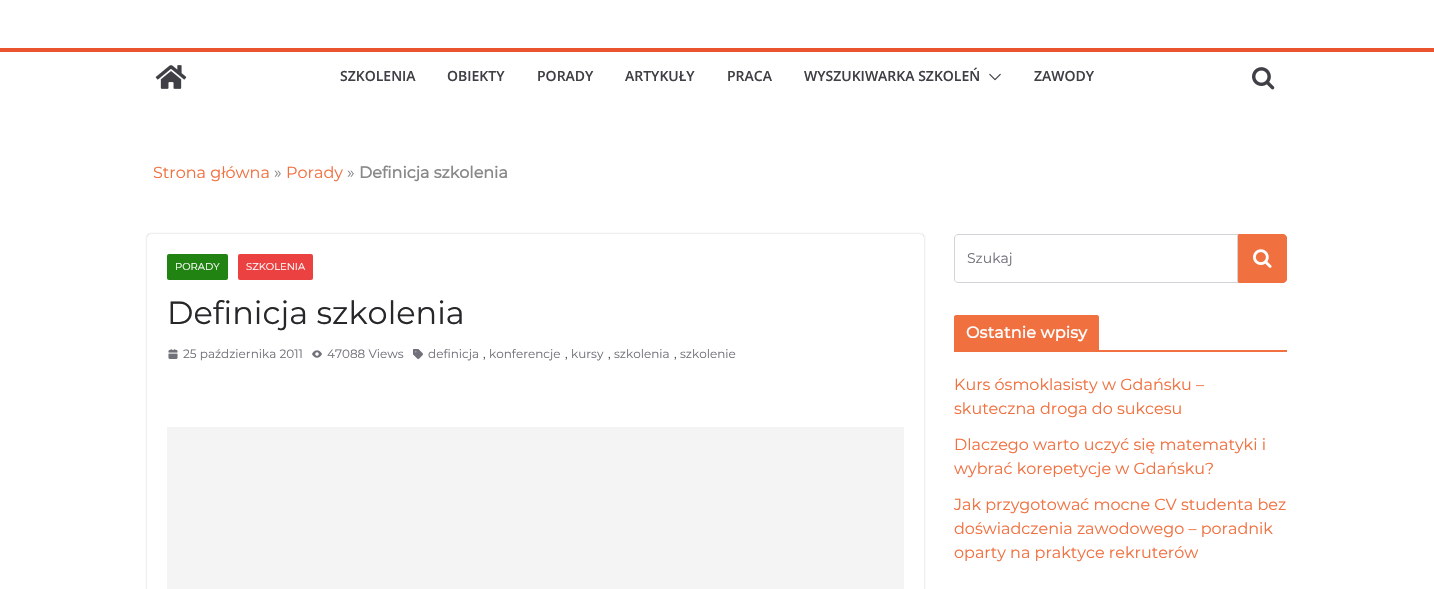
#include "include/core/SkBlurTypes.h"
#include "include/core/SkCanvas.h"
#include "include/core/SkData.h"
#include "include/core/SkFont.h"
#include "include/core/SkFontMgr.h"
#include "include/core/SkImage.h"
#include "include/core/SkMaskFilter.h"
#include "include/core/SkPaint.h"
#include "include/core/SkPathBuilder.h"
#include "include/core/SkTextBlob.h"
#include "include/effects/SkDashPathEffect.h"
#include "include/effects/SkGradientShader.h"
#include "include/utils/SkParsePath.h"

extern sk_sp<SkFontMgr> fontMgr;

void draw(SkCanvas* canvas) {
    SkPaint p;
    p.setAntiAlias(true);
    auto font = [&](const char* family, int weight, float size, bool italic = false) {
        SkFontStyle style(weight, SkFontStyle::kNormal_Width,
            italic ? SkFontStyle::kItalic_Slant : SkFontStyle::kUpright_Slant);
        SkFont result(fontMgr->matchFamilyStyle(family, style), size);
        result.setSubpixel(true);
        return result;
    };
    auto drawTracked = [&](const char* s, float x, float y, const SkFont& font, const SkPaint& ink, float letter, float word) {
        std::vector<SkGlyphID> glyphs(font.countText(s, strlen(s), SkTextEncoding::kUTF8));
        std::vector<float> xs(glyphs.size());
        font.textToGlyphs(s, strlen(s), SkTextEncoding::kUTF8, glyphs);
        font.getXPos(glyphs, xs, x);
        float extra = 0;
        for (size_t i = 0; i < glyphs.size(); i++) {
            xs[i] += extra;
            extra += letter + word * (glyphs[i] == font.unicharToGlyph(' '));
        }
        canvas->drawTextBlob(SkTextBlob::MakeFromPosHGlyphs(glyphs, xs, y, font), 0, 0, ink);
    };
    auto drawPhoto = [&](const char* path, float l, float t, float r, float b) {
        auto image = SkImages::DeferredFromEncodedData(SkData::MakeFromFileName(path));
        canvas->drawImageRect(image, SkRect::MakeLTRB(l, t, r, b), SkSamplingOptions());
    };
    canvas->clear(0xFFFFFFFF);
    p.setColor(0xFFEA542E);
    canvas->drawRect(SkRect::MakeLTRB(0, 48, 1434, 52), p);
    drawPhoto("media/1.png", 155, 65, 187, 89);
    auto font1 = font("Open Sans", 600, 14);
    p.setColor(0xFF3F3F46);
    {
        const struct { const char* s; float x, y; } items[] = {
            {"SZKOLENIA", 340, 81},
            {"OBIEKTY", 447, 81},
            {"PORADY", 537, 81},
            {"ARTYKUŁY", 625, 81},
            {"PRACA", 727, 81},
            {"WYSZUKIWARKA SZKOLEŃ", 804, 81},
        };
        for (auto [s, x, y] : items) {
            canvas->drawString(s, x, y, font1, p);
        }
    }
    drawPhoto("media/2.png", 989, 73, 1001, 81);
    canvas->drawString("ZAWODY", 1034, 81, font1, p);
    drawPhoto("media/3.png", 1252, 67, 1275, 90);
    auto font2 = font("Montserrat", 100, 16);
    p.setColor(0xFFF1703F);
    canvas->drawString("Strona główna", 153, 178, font2, p);
    p.setColor(0xFF888888);
    canvas->drawString("»", 274, 178, font2, p);
    p.setColor(0xFFF1703F);
    canvas->drawString("Porady", 286, 178, font2, p);
    p.setColor(0xFF888888);
    canvas->drawString("»", 347, 178, font2, p);
    auto font3 = font("Montserrat", 700, 16);
    canvas->drawString("Definicja szkolenia", 359, 178, font3, p);
    canvas->save();
    canvas->clipPath(SkPathBuilder(SkPathFillType::kEvenOdd).moveTo(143, 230).lineTo(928, 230).lineTo(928, 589).lineTo(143, 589).close().moveTo(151, 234).lineTo(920, 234).cubicTo(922, 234, 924, 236, 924, 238).lineTo(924, 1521).cubicTo(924, 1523, 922, 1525, 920, 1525).lineTo(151, 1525).cubicTo(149, 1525, 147, 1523, 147, 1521).lineTo(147, 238).cubicTo(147, 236, 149, 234, 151, 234).close().detach(), true);
    p.setColor(0x3D000000);
    p.setMaskFilter(SkMaskFilter::MakeBlur(kNormal_SkBlurStyle, 1));
    canvas->drawRoundRect(SkRect::MakeLTRB(147, 234, 924, 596), 4, 4, p);
    p.setMaskFilter(nullptr);
    canvas->restore();
    p.setColor(0xFF218312);
    canvas->drawRoundRect(SkRect::MakeLTRB(167, 254, 228, 280), 2, 2, p);
    auto font4 = font("Montserrat", 100, 10);
    p.setColor(0xFFFFFFFF);
    canvas->drawString("PORADY", 175, 270, font4, p);
    p.setColor(0xFFEC4141);
    canvas->drawRoundRect(SkRect::MakeLTRB(238, 254, 313, 280), 2, 2, p);
    p.setColor(0xFFFFFFFF);
    canvas->drawString("SZKOLENIA", 246, 270, font4, p);
    auto font5 = font("Montserrat", 100, 32);
    p.setColor(0xFF27272A);
    canvas->drawString("Definicja szkolenia", 167, 324, font5, p);
    drawPhoto("media/4.png", 168, 349, 178, 359);
    auto font6 = font("Montserrat", 100, 12);
    p.setColor(0xFF71717A);
    canvas->drawString("25 października 2011", 183, 358, font6, p);
    drawPhoto("media/5.png", 312, 350, 322, 358);
    canvas->drawString("47088 Views", 327, 358, font6, p);
    drawPhoto("media/6.png", 413, 349, 423, 359);
    canvas->drawString("definicja", 428, 358, font6, p);
    p.setColor(0xFF3F3F46);
    canvas->drawString(",", 483, 358, font6, p);
    p.setColor(0xFF71717A);
    canvas->drawString("konferencje", 489, 358, font6, p);
    p.setColor(0xFF3F3F46);
    canvas->drawString(",", 565, 358, font6, p);
    p.setColor(0xFF71717A);
    canvas->drawString("kursy", 571, 358, font6, p);
    p.setColor(0xFF3F3F46);
    canvas->drawString(",", 608, 358, font6, p);
    p.setColor(0xFF71717A);
    canvas->drawString("szkolenia", 614, 358, font6, p);
    p.setColor(0xFF3F3F46);
    canvas->drawString(",", 674, 358, font6, p);
    p.setColor(0xFF71717A);
    canvas->drawString("szkolenie", 680, 358, font6, p);
    p.setColor(0xFFF4F4F5);
    canvas->drawRect(SkRect::MakeLTRB(167, 427, 904, 589), p);
    p.setStyle(SkPaint::kStroke_Style);
    p.setStrokeWidth(1);
    p.setColor(0xFFD4D4D8);
    canvas->drawPath(SkPathBuilder().moveTo(958, 234.5f).lineTo(1237.5f, 234.5f).lineTo(1237.5f, 282.5f).lineTo(958, 282.5f).cubicTo(956, 282.5f, 954.5f, 281, 954.5f, 279).lineTo(954.5f, 238).cubicTo(954.5f, 236, 956, 234.5f, 958, 234.5f).close().detach(), p);
    auto font7 = font("Montserrat", 100, 14);
    p.setStyle(SkPaint::kFill_Style);
    p.setColor(0xFF71717A);
    canvas->drawString("Szukaj", 967, 263, font7, p);
    p.setColor(0xFFF1703F);
    canvas->drawPath(SkPathBuilder().moveTo(1238.5f, 234.5f).lineTo(1283, 234.5f).cubicTo(1285, 234.5f, 1286.5f, 236, 1286.5f, 238).lineTo(1286.5f, 279).cubicTo(1286.5f, 281, 1285, 282.5f, 1283, 282.5f).lineTo(1238.5f, 282.5f).close().detach(), p);
    p.setStyle(SkPaint::kStroke_Style);
    canvas->drawPath(SkPathBuilder().moveTo(1238.5f, 234.5f).lineTo(1283, 234.5f).cubicTo(1285, 234.5f, 1286.5f, 236, 1286.5f, 238).lineTo(1286.5f, 279).cubicTo(1286.5f, 281, 1285, 282.5f, 1283, 282.5f).lineTo(1238.5f, 282.5f).close().detach(), p);
    drawPhoto("media/7.png", 1253, 249, 1272, 268);
    p.setStyle(SkPaint::kFill_Style);
    canvas->drawRect(SkRect::MakeLTRB(954, 350, 1287, 352), p);
    canvas->drawPath(SkPathBuilder().moveTo(956, 315).lineTo(1097, 315).cubicTo(1098, 315, 1099, 316, 1099, 317).lineTo(1099, 350).lineTo(954, 350).lineTo(954, 317).cubicTo(954, 316, 955, 315, 956, 315).close().detach(), p);
    p.setColor(0xFFFFFFFF);
    drawTracked("Ostatnie wpisy", 966, 338, font3, p, 0.2f, 0);
    p.setColor(0xFFF1703F);
    {
        const struct { const char* s; float x, y; } items[] = {
            {"Kurs ósmoklasisty w Gdańsku –", 954, 390},
            {"skuteczna droga do sukcesu", 954, 414},
            {"Dlaczego warto uczyć się matematyki i", 954, 450},
            {"wybrać korepetycje w Gdańsku?", 954, 474},
            {"Jak przygotować mocne CV studenta bez", 954, 510},
            {"doświadczenia zawodowego – poradnik", 954, 534},
            {"oparty na praktyce rekruterów", 954, 558},
        };
        for (auto [s, x, y] : items) {
            canvas->drawString(s, x, y, font2, p);
        }
    }
}
